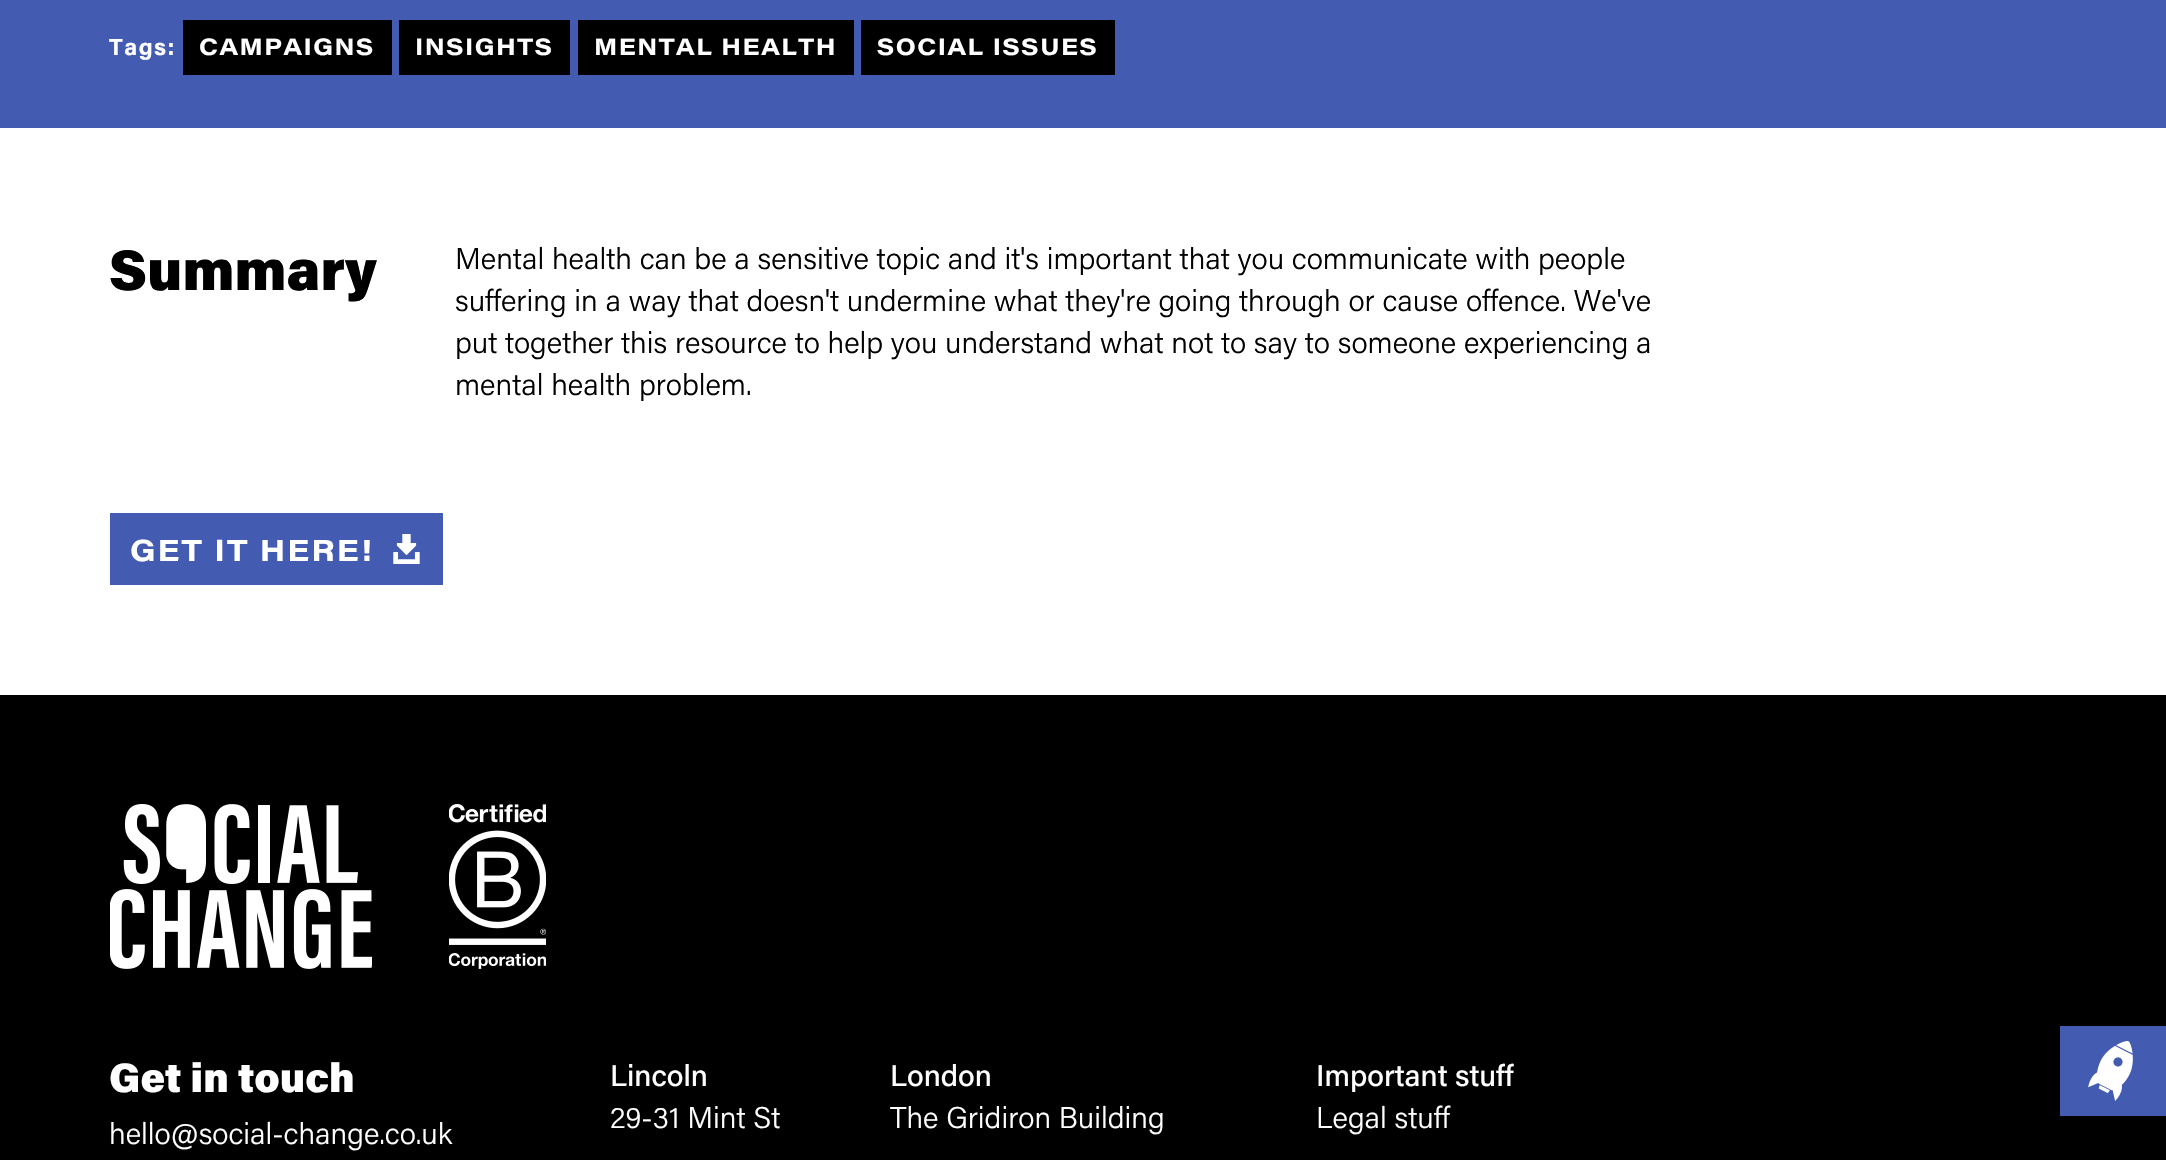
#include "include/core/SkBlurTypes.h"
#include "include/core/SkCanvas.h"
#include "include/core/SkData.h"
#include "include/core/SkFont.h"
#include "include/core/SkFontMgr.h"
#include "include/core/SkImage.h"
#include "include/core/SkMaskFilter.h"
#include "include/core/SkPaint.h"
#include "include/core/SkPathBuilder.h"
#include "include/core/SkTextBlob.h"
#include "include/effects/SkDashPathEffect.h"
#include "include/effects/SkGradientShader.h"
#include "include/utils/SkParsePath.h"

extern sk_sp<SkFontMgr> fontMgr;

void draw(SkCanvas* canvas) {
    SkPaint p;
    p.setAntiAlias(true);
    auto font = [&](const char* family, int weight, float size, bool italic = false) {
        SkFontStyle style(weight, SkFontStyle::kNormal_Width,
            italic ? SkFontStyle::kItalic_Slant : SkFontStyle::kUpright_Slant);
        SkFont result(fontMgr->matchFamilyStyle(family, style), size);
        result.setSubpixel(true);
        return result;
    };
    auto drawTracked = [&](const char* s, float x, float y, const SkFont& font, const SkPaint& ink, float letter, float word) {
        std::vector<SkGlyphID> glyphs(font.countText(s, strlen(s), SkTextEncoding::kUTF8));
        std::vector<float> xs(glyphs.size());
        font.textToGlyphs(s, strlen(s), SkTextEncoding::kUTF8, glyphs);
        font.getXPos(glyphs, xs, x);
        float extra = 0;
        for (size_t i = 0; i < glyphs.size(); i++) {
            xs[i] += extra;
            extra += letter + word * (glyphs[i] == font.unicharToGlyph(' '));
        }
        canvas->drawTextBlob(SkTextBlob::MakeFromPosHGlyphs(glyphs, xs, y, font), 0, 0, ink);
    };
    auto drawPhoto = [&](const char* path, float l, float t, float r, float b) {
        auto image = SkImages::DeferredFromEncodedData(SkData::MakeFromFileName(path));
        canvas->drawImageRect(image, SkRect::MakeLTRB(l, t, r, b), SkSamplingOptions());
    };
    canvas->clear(0xFFFFFFFF);
    p.setColor(0xFF435BB1);
    canvas->drawRect(SkRect::MakeLTRB(0, 0, 2166, 128), p);
    auto font1 = font("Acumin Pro", 700, 23.25f);
    p.setColor(0xFFFFFFFF);
    drawTracked("Tags:", 109, 55, font1, p, 1.5f, 0);
    p.setColor(0xFF000000);
    canvas->drawRect(SkRect::MakeLTRB(183, 20, 392, 75), p);
    auto font2 = font("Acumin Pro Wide", 700, 23.25f);
    p.setColor(0xFFFFFFFF);
    drawTracked("CAMPAIGNS", 199, 55, font2, p, 1.5f, 0);
    p.setColor(0xFF000000);
    canvas->drawRect(SkRect::MakeLTRB(399, 20, 570, 75), p);
    p.setColor(0xFFFFFFFF);
    drawTracked("INSIGHTS", 415, 55, font2, p, 1.5f, 0);
    p.setColor(0xFF000000);
    canvas->drawRect(SkRect::MakeLTRB(578, 20, 854, 75), p);
    p.setColor(0xFFFFFFFF);
    drawTracked("MENTAL HEALTH", 594, 55, font2, p, 1.5f, 0);
    p.setColor(0xFF000000);
    canvas->drawRect(SkRect::MakeLTRB(861, 20, 1115, 75), p);
    p.setColor(0xFFFFFFFF);
    drawTracked("SOCIAL ISSUES", 877, 55, font2, p, 1.5f, 0);
    auto font3 = font("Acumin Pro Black", 900, 57);
    p.setColor(0xFF000000);
    canvas->drawString("Summary", 109, 290, font3, p);
    auto font4 = font("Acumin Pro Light", 300, 30);
    {
        const struct { const char* s; float x, y; } items[] = {
            {"Mental health can be a sensitive topic and it's important that you communicate with people", 455, 269},
            {"suffering in a way that doesn't undermine what they're going through or cause offence. We've", 455, 311},
            {"put together this resource to help you understand what not to say to someone experiencing a", 455, 353},
            {"mental health problem.", 455, 395},
        };
        for (auto [s, x, y] : items) {
            canvas->drawString(s, x, y, font4, p);
        }
    }
    p.setColor(0xFF435BB1);
    canvas->drawRect(SkRect::MakeLTRB(110, 513, 443, 585), p);
    auto font5 = font("Acumin Pro Wide", 700, 30);
    p.setColor(0xFFFFFFFF);
    drawTracked("GET IT HERE!", 130, 561, font5, p, 2, 0);
    drawPhoto("media/1.png", 393, 534, 420, 564);
    p.setColor(0xFF000000);
    canvas->drawRect(SkRect::MakeLTRB(0, 695, 2166, 1160), p);
    drawPhoto("media/2.png", 110, 804, 372, 969);
    drawPhoto("media/3.png", 449, 804, 546, 969);
    auto font6 = font("Acumin Pro Black", 900, 41);
    p.setColor(0xFFFFFFFF);
    canvas->drawString("Get in touch", 109, 1092, font6, p);
    canvas->drawString("hello@social-change.co.uk", 109, 1144, font4, p);
    auto font7 = font("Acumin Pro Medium", 500, 30);
    canvas->drawString("Lincoln", 610, 1086, font7, p);
    canvas->drawString("29-31 Mint St", 610, 1128, font4, p);
    canvas->drawString("London", 890, 1086, font7, p);
    canvas->drawString("The Gridiron Building", 890, 1128, font4, p);
    canvas->drawString("Important stuff", 1316, 1086, font7, p);
    canvas->drawString("Legal stuff", 1316, 1128, font4, p);
    p.setColor(0xFF435BB1);
    canvas->drawRect(SkRect::MakeLTRB(2060, 1026, 2166, 1116), p);
    drawPhoto("media/4.png", 2088, 1041, 2133, 1101);
}
